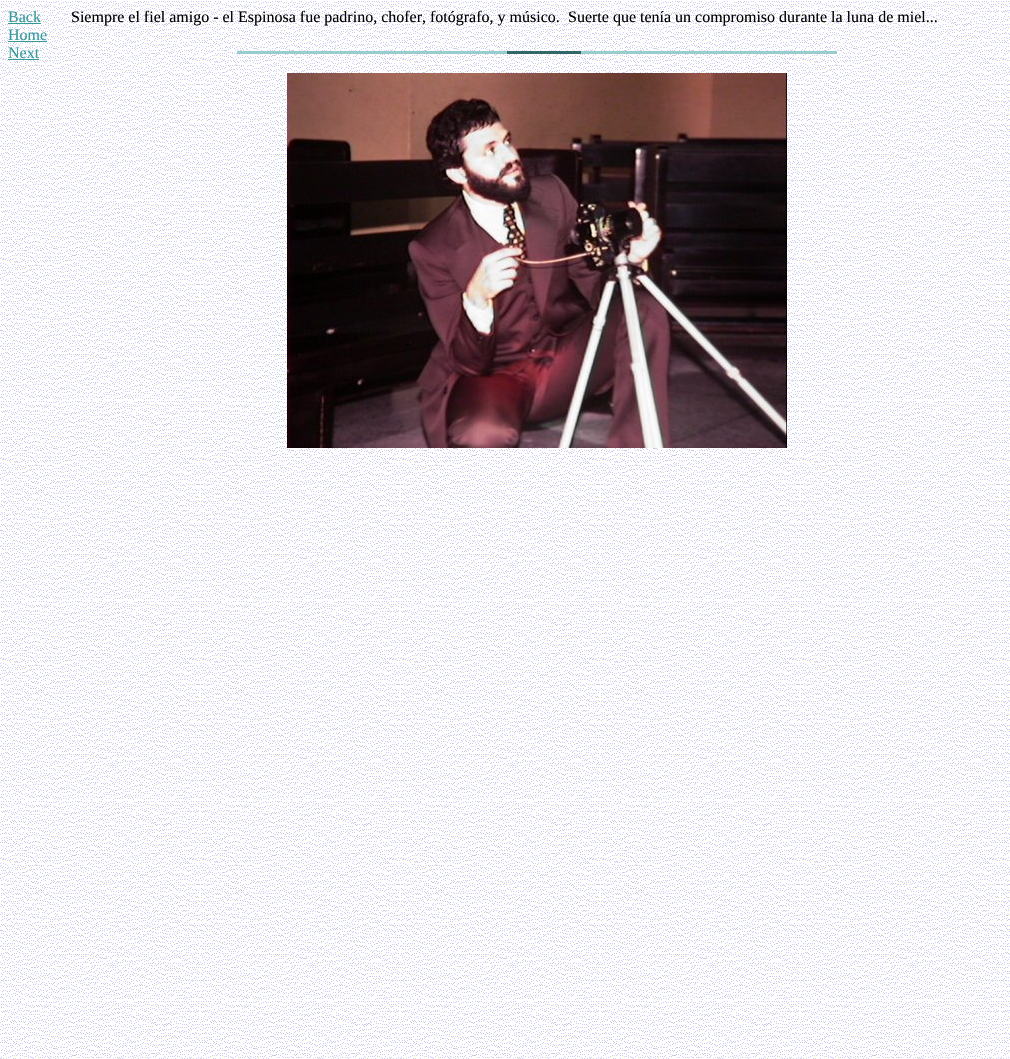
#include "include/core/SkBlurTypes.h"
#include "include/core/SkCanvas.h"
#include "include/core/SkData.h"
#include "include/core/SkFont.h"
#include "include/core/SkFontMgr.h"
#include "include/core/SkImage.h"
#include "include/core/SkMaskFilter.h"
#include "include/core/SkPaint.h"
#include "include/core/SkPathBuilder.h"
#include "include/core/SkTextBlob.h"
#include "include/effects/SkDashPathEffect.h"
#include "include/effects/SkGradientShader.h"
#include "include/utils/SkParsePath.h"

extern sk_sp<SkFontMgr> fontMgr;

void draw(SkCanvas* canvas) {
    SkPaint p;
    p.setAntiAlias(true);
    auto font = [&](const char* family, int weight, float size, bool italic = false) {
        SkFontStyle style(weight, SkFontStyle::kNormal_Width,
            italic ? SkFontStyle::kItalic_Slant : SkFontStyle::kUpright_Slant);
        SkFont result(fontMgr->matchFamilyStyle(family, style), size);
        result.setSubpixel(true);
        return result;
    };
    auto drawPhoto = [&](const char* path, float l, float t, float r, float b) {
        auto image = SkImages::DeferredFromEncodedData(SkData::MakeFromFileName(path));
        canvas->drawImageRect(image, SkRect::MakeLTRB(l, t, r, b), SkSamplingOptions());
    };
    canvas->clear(0xFFFFFFFF);
    drawPhoto("media/1.png", 0, 1, 1010, 1059);
    auto font1 = font("Liberation Serif", 400, 16);
    p.setColor(0xFF339999);
    canvas->drawString("Back", 8, 22, font1, p);
    canvas->drawRect(SkRect::MakeLTRB(8, 23, 41, 24), p);
    canvas->drawString("Home", 8, 40, font1, p);
    canvas->drawRect(SkRect::MakeLTRB(8, 41, 47, 42), p);
    canvas->drawString("Next", 8, 58, font1, p);
    canvas->drawRect(SkRect::MakeLTRB(8, 59, 39, 60), p);
    p.setColor(0xFF000000);
    canvas->drawString("Siempre el fiel amigo - el Espinosa fue padrino, chofer, fotógrafo, y músico.", 71, 22, font1, p);
    canvas->drawString("Suerte que tenía un compromiso durante la luna de miel...", 568, 22, font1, p);
    drawPhoto("media/2.png", 237, 51, 837, 54);
    drawPhoto("media/3.png", 287, 73, 787, 448);
}
